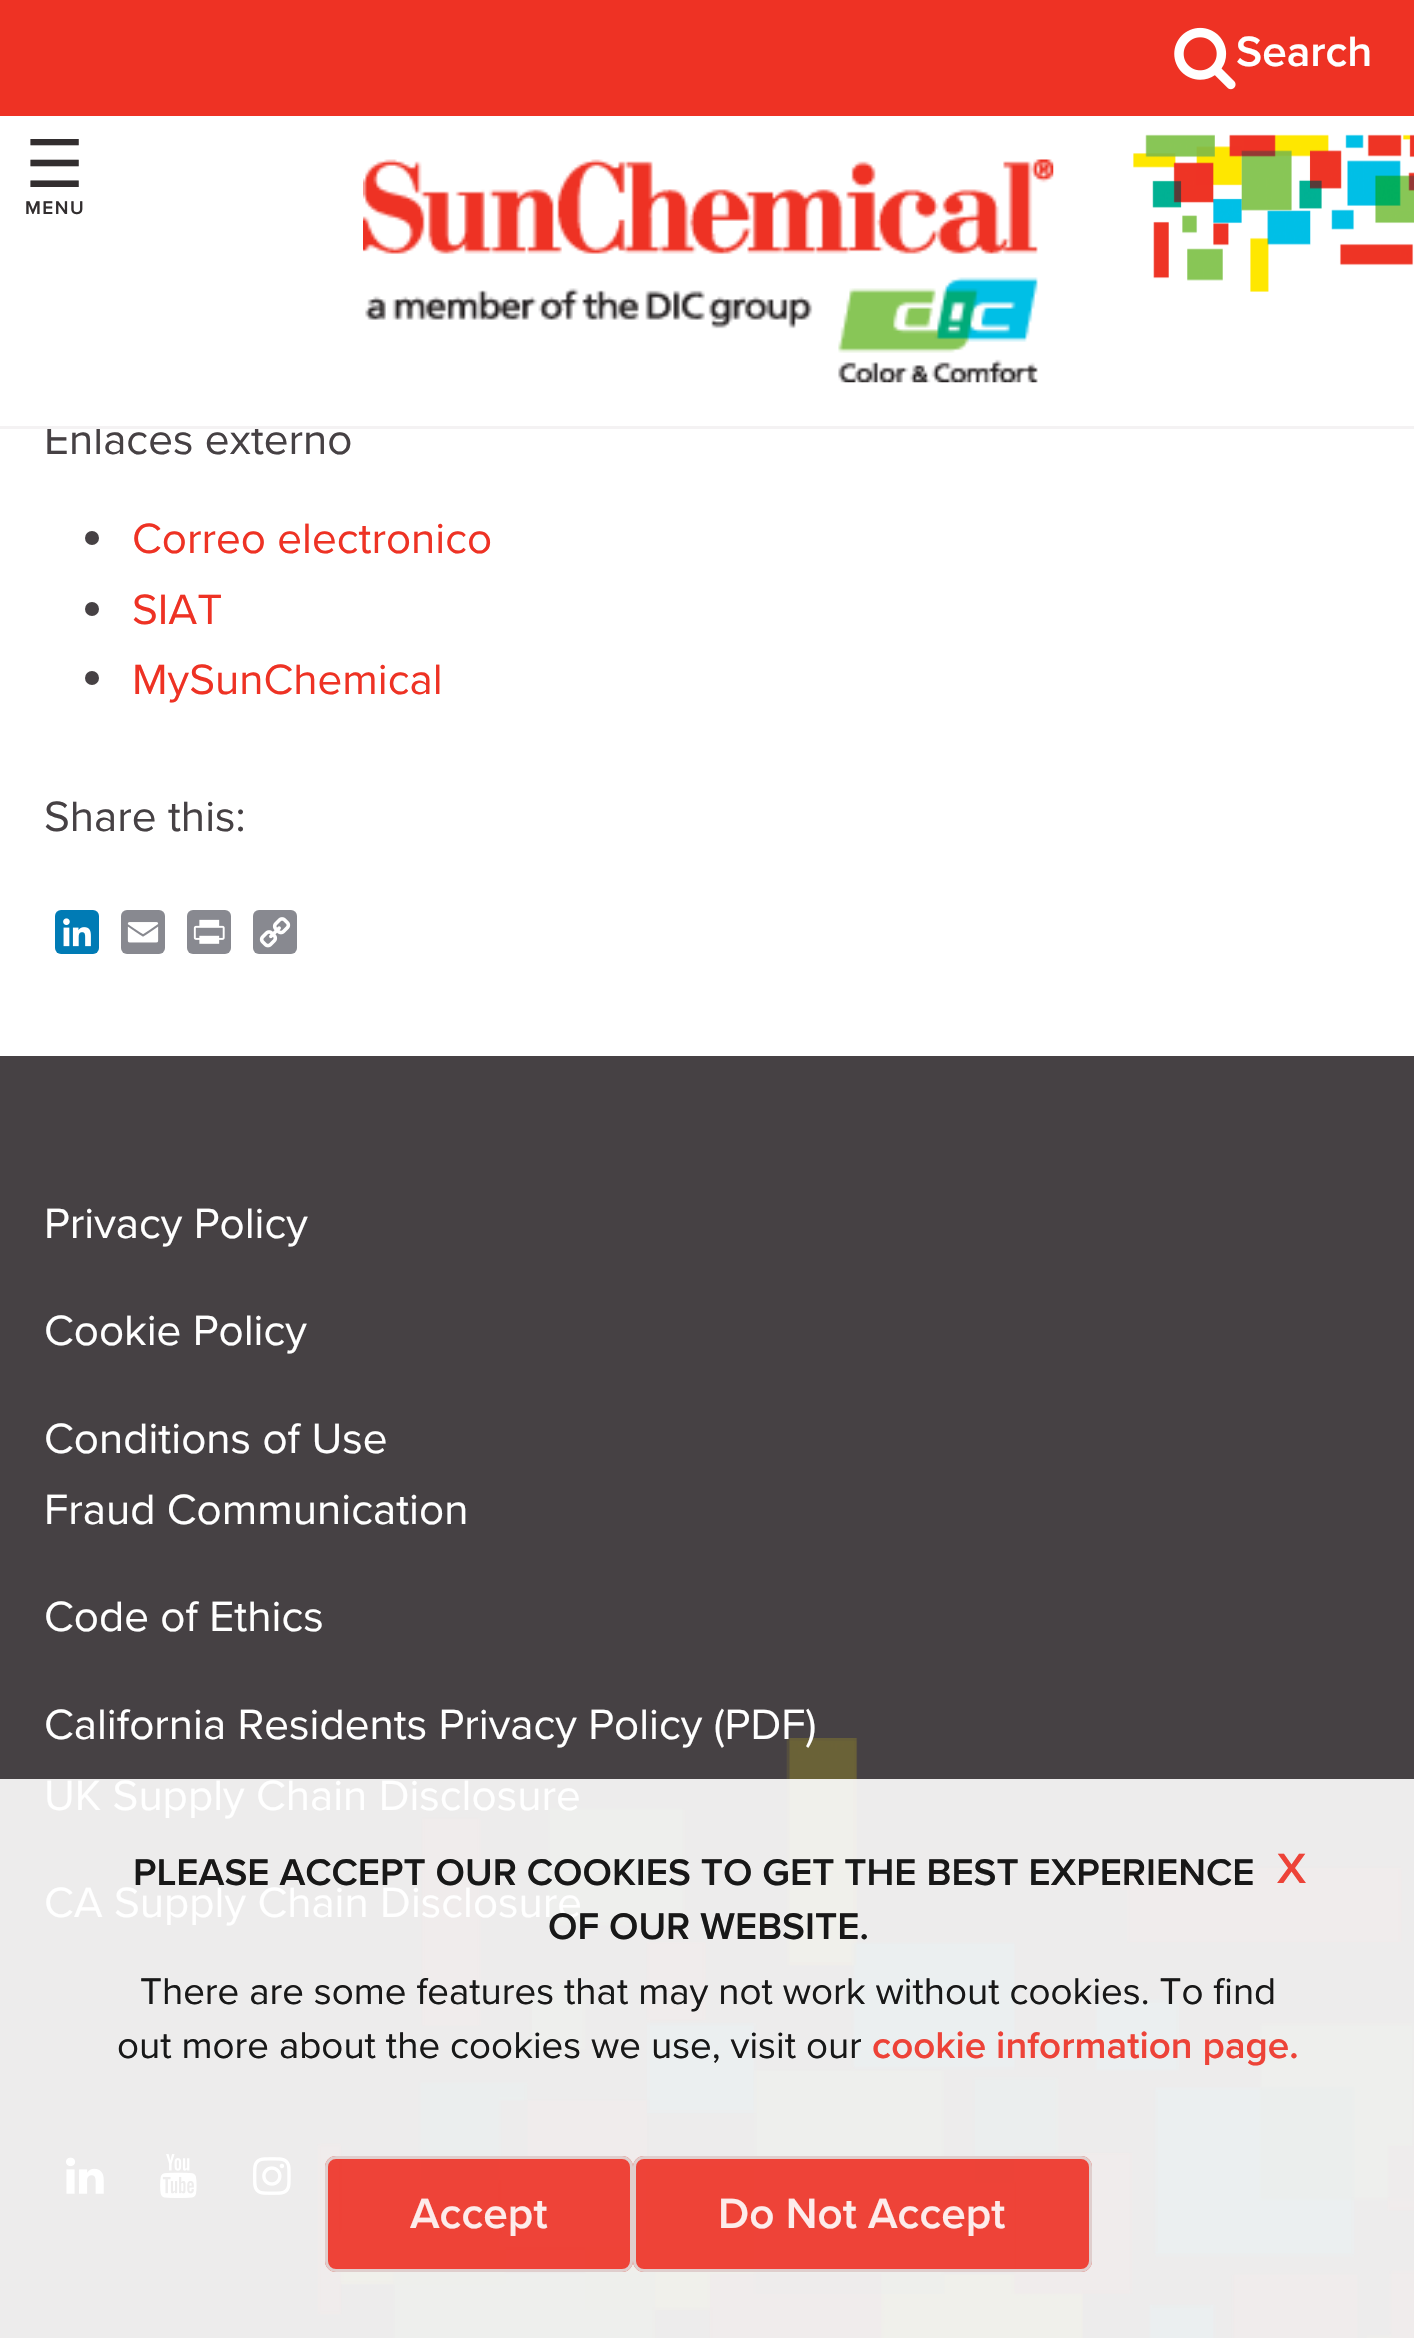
#include "include/core/SkBlurTypes.h"
#include "include/core/SkCanvas.h"
#include "include/core/SkData.h"
#include "include/core/SkFont.h"
#include "include/core/SkFontMgr.h"
#include "include/core/SkImage.h"
#include "include/core/SkMaskFilter.h"
#include "include/core/SkPaint.h"
#include "include/core/SkPathBuilder.h"
#include "include/core/SkTextBlob.h"
#include "include/effects/SkDashPathEffect.h"
#include "include/effects/SkGradientShader.h"
#include "include/utils/SkParsePath.h"

extern sk_sp<SkFontMgr> fontMgr;

void draw(SkCanvas* canvas) {
    SkPaint p;
    p.setAntiAlias(true);
    auto font = [&](const char* family, int weight, float size, bool italic = false) {
        SkFontStyle style(weight, SkFontStyle::kNormal_Width,
            italic ? SkFontStyle::kItalic_Slant : SkFontStyle::kUpright_Slant);
        SkFont result(fontMgr->matchFamilyStyle(family, style), size);
        result.setSubpixel(true);
        return result;
    };
    auto drawTracked = [&](const char* s, float x, float y, const SkFont& font, const SkPaint& ink, float letter, float word) {
        std::vector<SkGlyphID> glyphs(font.countText(s, strlen(s), SkTextEncoding::kUTF8));
        std::vector<float> xs(glyphs.size());
        font.textToGlyphs(s, strlen(s), SkTextEncoding::kUTF8, glyphs);
        font.getXPos(glyphs, xs, x);
        float extra = 0;
        for (size_t i = 0; i < glyphs.size(); i++) {
            xs[i] += extra;
            extra += letter + word * (glyphs[i] == font.unicharToGlyph(' '));
        }
        canvas->drawTextBlob(SkTextBlob::MakeFromPosHGlyphs(glyphs, xs, y, font), 0, 0, ink);
    };
    auto drawPhoto = [&](const char* path, float l, float t, float r, float b) {
        auto image = SkImages::DeferredFromEncodedData(SkData::MakeFromFileName(path));
        canvas->drawImageRect(image, SkRect::MakeLTRB(l, t, r, b), SkSamplingOptions());
    };
    canvas->clear(0xFFFFFFFF);
    auto font1 = font("Proxima Nova", 400, 44);
    p.setColor(0xFF464144);
    canvas->drawString("Enlaces externo", 44, 454, font1, p);
    p.setColor(0xFFFFFFFF);
    canvas->drawRect(SkRect::MakeLTRB(47, 424, 100, 426), p);
    drawPhoto("media/1.png", 1133, 134, 1414, 292);
    p.setColor(0xFFF4F2F3);
    canvas->drawRect(SkRect::MakeLTRB(0, 426, 1414, 429), p);
    p.setColor(0xFFEE3224);
    canvas->drawRect(SkRect::MakeLTRB(0, 0, 1414, 116), p);
    drawPhoto("media/2.png", 1174, 27, 1236, 90);
    auto font2 = font("Proxima Nova", 600, 44);
    p.setColor(0xFFFFFFFF);
    canvas->drawString("Search", 1236, 66, font2, p);
    auto font3 = font("DejaVu Sans", 400, 66);
    p.setColor(0xFF322E2F);
    canvas->drawString("☰", 25, 187, font3, p);
    auto font4 = font("Proxima Nova", 600, 19);
    drawTracked("MENU", 25, 214, font4, p, 1.5f, 0);
    drawPhoto("media/3.png", 363, 159, 1054, 383);
    p.setColor(0xFF464144);
    canvas->drawCircle(92, 538, 7, p);
    p.setColor(0xFFEE3224);
    canvas->drawString("Correo electronico", 132, 553, font1, p);
    p.setColor(0xFF464144);
    canvas->drawCircle(92, 609, 7, p);
    p.setColor(0xFFEE3224);
    canvas->drawString("SIAT", 132, 624, font1, p);
    p.setColor(0xFF464144);
    canvas->drawCircle(92, 678, 7, p);
    p.setColor(0xFFEE3224);
    canvas->drawString("MySunChemical", 132, 694, font1, p);
    p.setColor(0xFF464144);
    canvas->drawString("Share this:", 44, 831, font1, p);
    p.setColor(0xFF007BB5);
    canvas->drawRoundRect(SkRect::MakeLTRB(55, 910, 99, 954), 6, 6, p);
    drawPhoto("media/4.png", 63, 918, 91, 947);
    p.setColor(0xFF888990);
    canvas->drawRoundRect(SkRect::MakeLTRB(121, 910, 165, 954), 6, 6, p);
    drawPhoto("media/5.png", 127, 922, 159, 943);
    canvas->drawRoundRect(SkRect::MakeLTRB(187, 910, 231, 954), 6, 6, p);
    drawPhoto("media/6.png", 193, 919, 225, 944);
    canvas->drawRoundRect(SkRect::MakeLTRB(253, 910, 297, 954), 6, 6, p);
    drawPhoto("media/7.png", 259, 917, 291, 948);
    p.setColor(0xFF464144);
    canvas->drawRect(SkRect::MakeLTRB(0, 1056, 1414, 1779), p);
    p.setColor(0xFFEDECEC);
    canvas->drawRect(SkRect::MakeLTRB(0, 1779, 1414, 2338), p);
    drawPhoto("media/8.png", 317, 1738, 1414, 2338);
    p.setColor(0xFFFFFFFF);
    {
        const struct { const char* s; float x, y; } items[] = {
            {"Privacy Policy", 44, 1238},
            {"Cookie Policy", 44, 1345},
            {"Conditions of Use", 44, 1453},
            {"Fraud Communication", 44, 1524},
            {"Code of Ethics", 44, 1631},
            {"California Residents Privacy Policy (PDF)", 44, 1739},
            {"UK Supply Chain Disclosure", 44, 1810},
            {"CA Supply Chain Disclosure", 44, 1917},
        };
        for (auto [s, x, y] : items) {
            canvas->drawString(s, x, y, font1, p);
        }
    }
    drawPhoto("media/9.png", 66, 2157, 104, 2194);
    drawPhoto("media/10.png", 160, 2154, 197, 2198);
    drawPhoto("media/11.png", 253, 2157, 291, 2195);
    auto font5 = font("Proxima Nova", 600, 38.5f);
    p.setColor(0xFF181818);
    canvas->drawString("PLEASE ACCEPT OUR COOKIES TO GET THE BEST EXPERIENCE", 133, 1885, font5, p);
    canvas->drawString("OF OUR WEBSITE.", 548, 1939, font5, p);
    p.setColor(0xFFED4338);
    canvas->drawString("X", 1277, 1883, font2, p);
    auto font6 = font("Proxima Nova", 400, 38.5f);
    p.setColor(0xFF181818);
    canvas->drawString("There are some features that may not work without cookies. To find", 140, 2004, font6, p);
    canvas->drawString("out more about the cookies we use, visit our", 117, 2058, font6, p);
    p.setColor(0xFFED4338);
    canvas->drawString("cookie information page.", 872, 2058, font5, p);
    p.setColor(0xE6ED3024);
    canvas->drawRoundRect(SkRect::MakeLTRB(325, 2156, 633, 2272), 11, 11, p);
    p.setStyle(SkPaint::kStroke_Style);
    p.setStrokeWidth(3);
    p.setColor(0xE6DDDDDD);
    canvas->drawRoundRect(SkRect::MakeLTRB(326.5f, 2157.5f, 631.5f, 2270.5f), 9.5f, 9.5f, p);
    p.setStyle(SkPaint::kFill_Style);
    p.setColor(0xFFFDECEB);
    canvas->drawString("Accept", 410, 2228, font2, p);
    p.setColor(0xE6ED3024);
    canvas->drawRoundRect(SkRect::MakeLTRB(633, 2156, 1092, 2272), 11, 11, p);
    p.setStyle(SkPaint::kStroke_Style);
    p.setColor(0xE6DDDDDD);
    canvas->drawRoundRect(SkRect::MakeLTRB(634.5f, 2157.5f, 1090.5f, 2270.5f), 9.5f, 9.5f, p);
    p.setStyle(SkPaint::kFill_Style);
    p.setColor(0xFFFDECEB);
    canvas->drawString("Do Not Accept", 718, 2228, font2, p);
}
